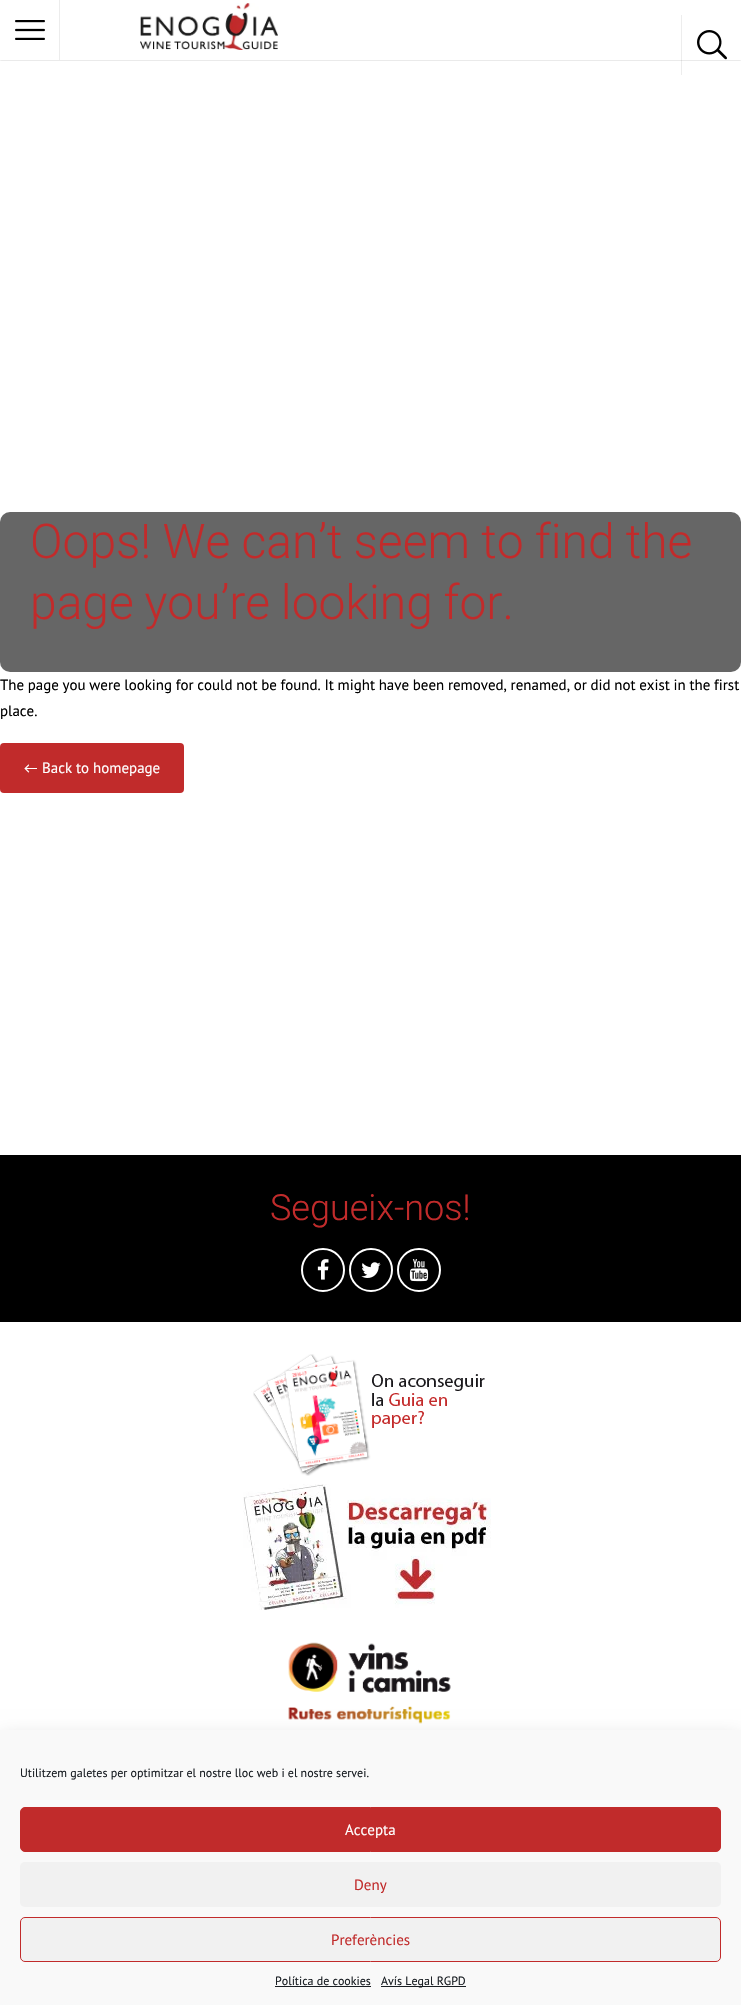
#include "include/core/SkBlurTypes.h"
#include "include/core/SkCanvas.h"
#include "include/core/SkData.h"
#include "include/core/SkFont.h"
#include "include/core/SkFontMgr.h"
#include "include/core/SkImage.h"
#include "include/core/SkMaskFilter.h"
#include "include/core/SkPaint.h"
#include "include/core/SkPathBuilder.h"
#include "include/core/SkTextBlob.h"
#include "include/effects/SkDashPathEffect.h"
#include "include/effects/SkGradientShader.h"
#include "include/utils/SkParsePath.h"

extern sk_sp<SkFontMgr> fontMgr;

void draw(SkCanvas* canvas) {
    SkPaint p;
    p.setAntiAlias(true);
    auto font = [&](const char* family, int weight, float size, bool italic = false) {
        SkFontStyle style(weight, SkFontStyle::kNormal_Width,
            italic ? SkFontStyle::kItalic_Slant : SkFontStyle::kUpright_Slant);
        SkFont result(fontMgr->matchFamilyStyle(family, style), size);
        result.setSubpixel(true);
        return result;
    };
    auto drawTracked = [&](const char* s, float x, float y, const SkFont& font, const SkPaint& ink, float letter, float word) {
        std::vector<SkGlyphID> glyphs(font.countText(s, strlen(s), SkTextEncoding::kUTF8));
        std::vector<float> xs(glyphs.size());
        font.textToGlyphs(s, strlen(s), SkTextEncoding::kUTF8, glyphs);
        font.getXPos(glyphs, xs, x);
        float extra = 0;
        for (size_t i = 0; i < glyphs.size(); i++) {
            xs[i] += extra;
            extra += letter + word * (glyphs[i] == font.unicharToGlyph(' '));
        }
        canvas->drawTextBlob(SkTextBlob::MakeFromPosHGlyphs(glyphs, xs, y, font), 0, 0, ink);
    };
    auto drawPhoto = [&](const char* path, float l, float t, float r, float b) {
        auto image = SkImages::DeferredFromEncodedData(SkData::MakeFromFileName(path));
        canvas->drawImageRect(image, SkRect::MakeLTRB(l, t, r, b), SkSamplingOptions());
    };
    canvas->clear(0xFFFFFFFF);
    canvas->save();
    canvas->clipRect(SkRect::MakeLTRB(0, 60, 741, 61));
    p.setColor(0x40000000);
    p.setMaskFilter(SkMaskFilter::MakeBlur(kNormal_SkBlurStyle, 1));
    canvas->drawRect(SkRect::MakeLTRB(0, 0, 741, 60), p);
    p.setMaskFilter(nullptr);
    canvas->restore();
    p.setColor(0xFFECECEC);
    canvas->drawRect(SkRect::MakeLTRB(59, 0, 60, 60), p);
    drawPhoto("media/1.png", 15, 20, 45, 40);
    drawPhoto("media/2.png", 140, 3, 278, 50);
    p.setColor(0x12000000);
    canvas->drawRect(SkRect::MakeLTRB(681, 15, 682, 75), p);
    drawPhoto("media/3.png", 697, 30, 727, 60);
    p.setColor(0xFF666666);
    canvas->drawRoundRect(SkRect::MakeLTRB(0, 512, 741, 672), 10, 10, p);
    auto font1 = font("Roboto", 300, 48);
    p.setColor(0xFFC12B2B);
    drawTracked("Oops! We can’t seem to find the", 30, 558, font1, p, 0, -0.5f);
    drawTracked("page you’re looking for.", 30, 619, font1, p, 0, -1);
    auto font2 = font("PT Sans", 400, 14.95f);
    p.setColor(0xFF000000);
    drawTracked("The page you were looking for could not be found. It might have been removed, renamed, or did not exist in the first", 0, 690, font2, p, 0, -0.3f);
    canvas->drawString("place.", 0, 716, font2, p);
    p.setColor(0xFFC12B2B);
    canvas->drawRoundRect(SkRect::MakeLTRB(0, 743, 184, 793), 4, 4, p);
    auto font3 = font("Carlito", 400, 14.95f);
    p.setColor(0xFFFFFFFF);
    canvas->drawString("←", 24, 773, font3, p);
    canvas->drawString("Back to homepage", 42, 773, font2, p);
    p.setColor(0xFF000000);
    canvas->drawRect(SkRect::MakeLTRB(0, 1155, 741, 1322), p);
    auto font4 = font("Roboto", 300, 36);
    p.setColor(0xFFC12B2B);
    canvas->drawString("Segueix-nos!", 270, 1220, font4, p);
    p.setStyle(SkPaint::kStroke_Style);
    p.setStrokeWidth(2);
    p.setColor(0xFFFFFFFF);
    canvas->drawCircle(323, 1270, 21, p);
    drawPhoto("media/4.png", 317, 1259, 329, 1280);
    canvas->drawCircle(371, 1270, 21, p);
    drawPhoto("media/5.png", 361, 1262, 381, 1278);
    canvas->drawCircle(419, 1270, 21, p);
    drawPhoto("media/6.png", 409, 1259, 429, 1282);
    drawPhoto("media/7.png", 253, 1354, 485, 1476);
    drawPhoto("media/8.png", 243, 1484, 491, 1610);
    drawPhoto("media/9.png", 288, 1642, 451, 1724);
    p.setStyle(SkPaint::kFill_Style);
    p.setColor(0x30000000);
    p.setMaskFilter(SkMaskFilter::MakeBlur(kNormal_SkBlurStyle, 10));
    canvas->drawRect(SkRect::MakeLTRB(0, 1739, 741, 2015), p);
    p.setMaskFilter(nullptr);
    p.setColor(0xFFF9F9F9);
    canvas->drawRect(SkRect::MakeLTRB(0, 1730, 741, 2005), p);
    auto font5 = font("PT Sans", 400, 12);
    p.setColor(0xFF191E23);
    canvas->drawString("Utilitzem galetes per optimitzar el nostre lloc web i el nostre servei.", 20, 1777, font5, p);
    p.setColor(0xFFC12B2B);
    canvas->drawRoundRect(SkRect::MakeLTRB(20.5f, 1807.5f, 720.5f, 1851.5f), 4.5f, 4.5f, p);
    p.setStyle(SkPaint::kStroke_Style);
    p.setStrokeWidth(1);
    canvas->drawRoundRect(SkRect::MakeLTRB(20.5f, 1807.5f, 720.5f, 1851.5f), 4.5f, 4.5f, p);
    auto font6 = font("PT Sans", 400, 15);
    p.setStyle(SkPaint::kFill_Style);
    p.setColor(0xFFFFFFFF);
    canvas->drawString("Accepta", 345, 1835, font6, p);
    p.setColor(0xFFF1F1F1);
    canvas->drawRoundRect(SkRect::MakeLTRB(20, 1862, 721, 1907), 5, 5, p);
    p.setColor(0xFFC12B2B);
    canvas->drawString("Deny", 354, 1890, font6, p);
    p.setColor(0xFFF1F1F1);
    canvas->drawRoundRect(SkRect::MakeLTRB(20.5f, 1917.5f, 720.5f, 1961.5f), 4.5f, 4.5f, p);
    p.setStyle(SkPaint::kStroke_Style);
    p.setColor(0xFFC12B2B);
    canvas->drawRoundRect(SkRect::MakeLTRB(20.5f, 1917.5f, 720.5f, 1961.5f), 4.5f, 4.5f, p);
    p.setStyle(SkPaint::kFill_Style);
    canvas->drawString("Preferències", 331, 1945, font6, p);
    p.setColor(0xFF191E23);
    canvas->drawString("Política de cookies", 275, 1985, font5, p);
    canvas->drawRect(SkRect::MakeLTRB(275, 1986, 371, 1987), p);
    canvas->drawRect(SkRect::MakeLTRB(381, 1986, 466, 1987), p);
    canvas->drawString("Avís Legal RGPD", 381, 1985, font5, p);
}
